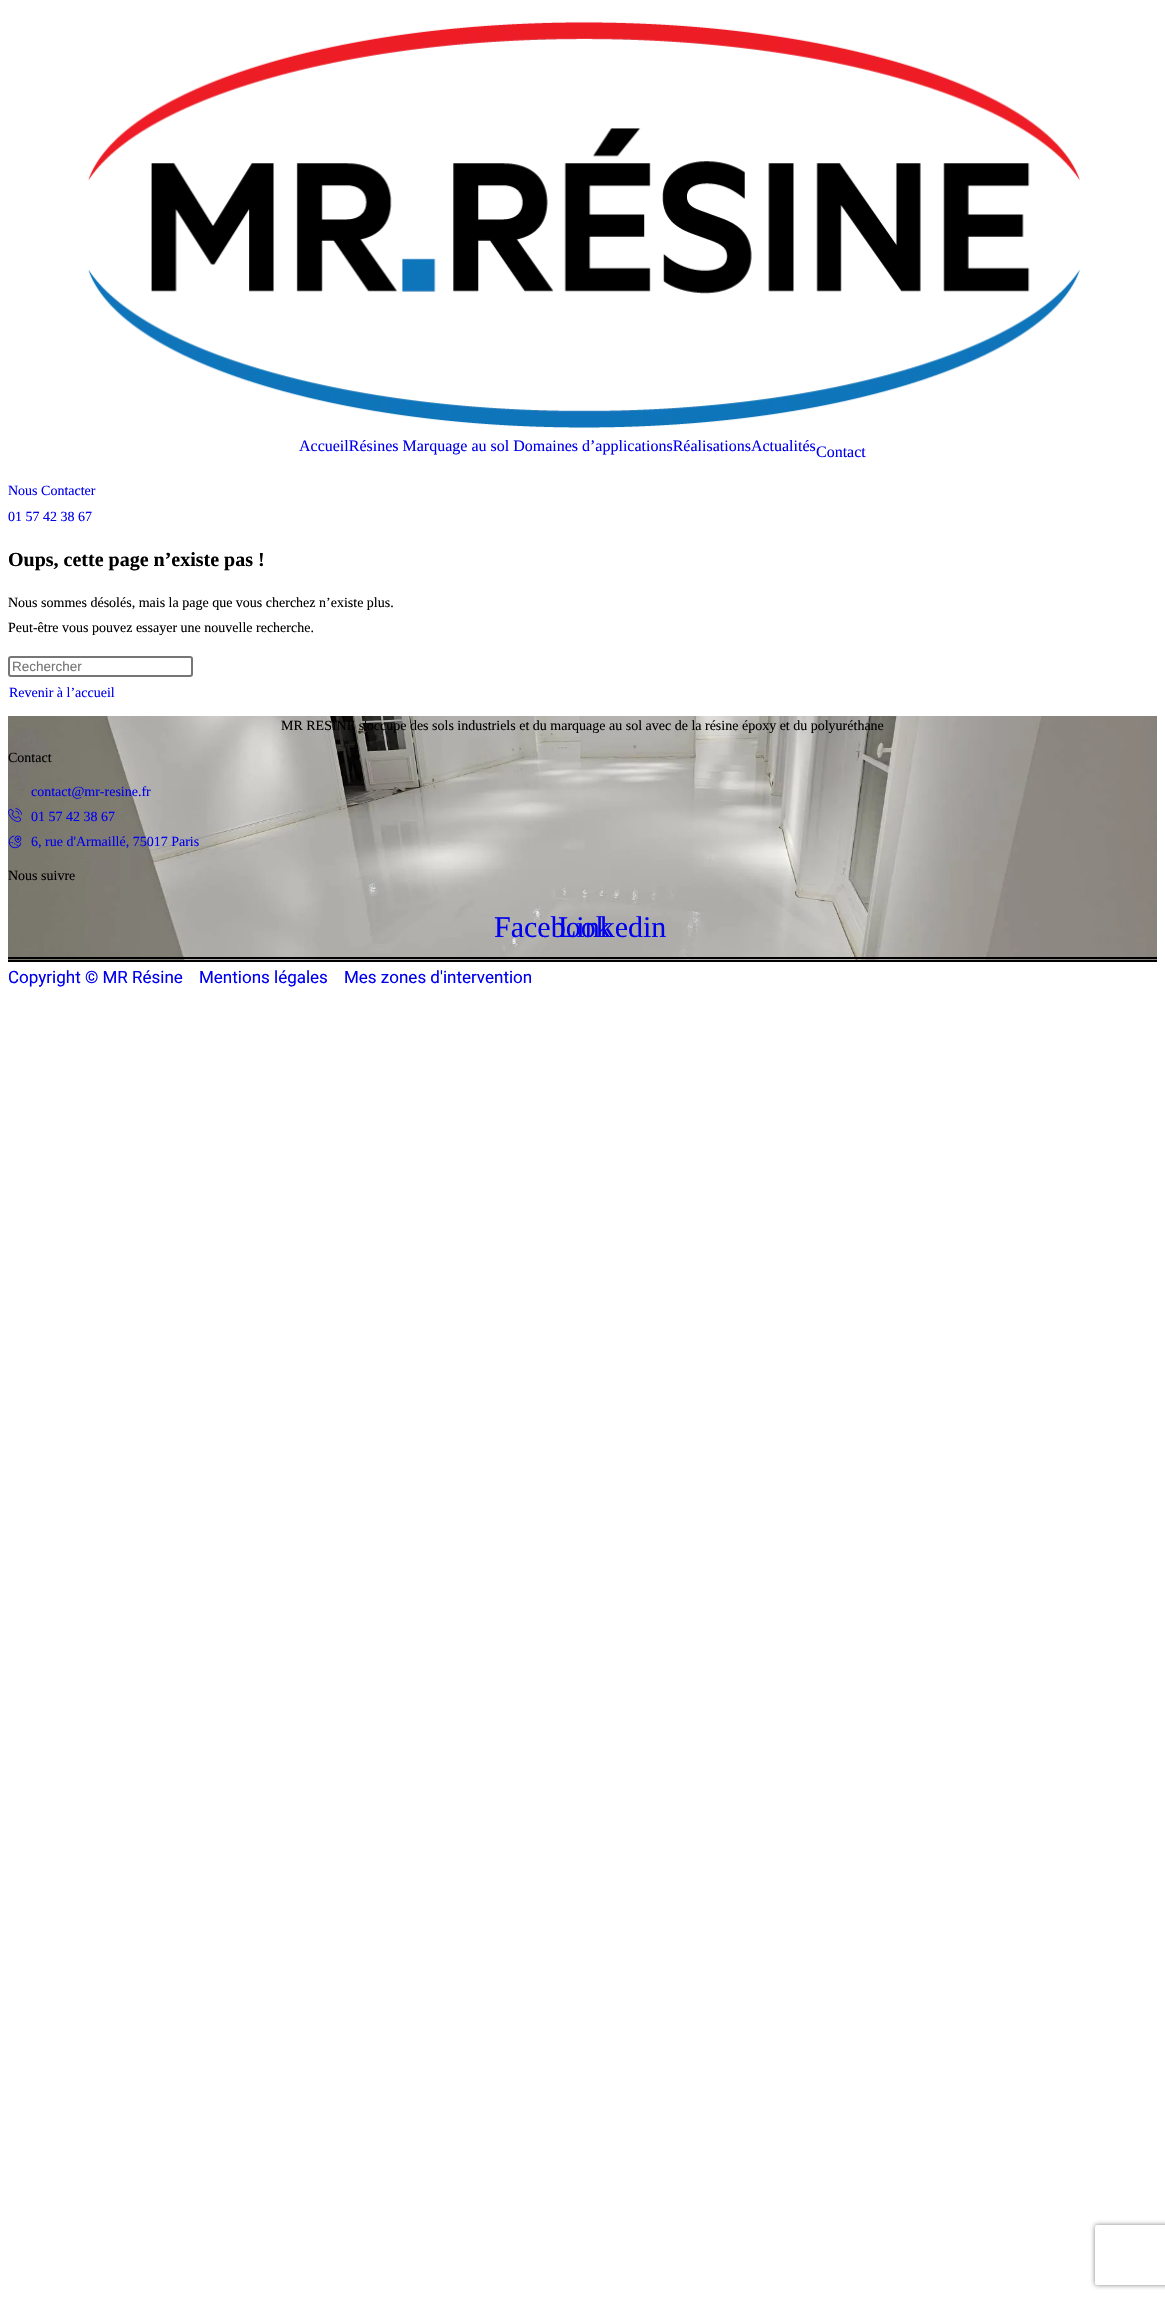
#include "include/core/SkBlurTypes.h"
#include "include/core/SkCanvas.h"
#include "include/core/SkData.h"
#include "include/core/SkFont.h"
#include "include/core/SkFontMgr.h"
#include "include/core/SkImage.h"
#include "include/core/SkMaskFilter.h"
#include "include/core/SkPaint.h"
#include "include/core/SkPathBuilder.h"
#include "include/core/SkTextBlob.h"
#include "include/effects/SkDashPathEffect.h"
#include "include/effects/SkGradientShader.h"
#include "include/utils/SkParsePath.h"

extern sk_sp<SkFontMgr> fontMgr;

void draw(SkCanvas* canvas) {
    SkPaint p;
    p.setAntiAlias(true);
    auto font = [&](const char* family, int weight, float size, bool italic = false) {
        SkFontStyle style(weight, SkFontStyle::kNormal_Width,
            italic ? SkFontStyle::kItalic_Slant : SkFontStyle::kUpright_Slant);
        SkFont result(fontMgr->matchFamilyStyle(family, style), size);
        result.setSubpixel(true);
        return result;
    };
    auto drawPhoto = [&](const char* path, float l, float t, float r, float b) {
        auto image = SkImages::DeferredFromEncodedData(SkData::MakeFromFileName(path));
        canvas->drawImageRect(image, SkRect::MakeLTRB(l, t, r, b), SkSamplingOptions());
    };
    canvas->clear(0xFFFFFFFF);
    drawPhoto("media/1.png", 88, 21, 1080, 429);
    auto font1 = font("Liberation Serif", 400, 16);
    p.setColor(0xFF0000EE);
    canvas->drawString("AccueilRésines Marquage au sol Domaines d’applicationsRéalisationsActualités", 299, 451, font1, p);
    canvas->drawString("Contact", 816, 457, font1, p);
    auto font2 = font("Liberation Serif", 400, 14);
    canvas->drawString("Nous Contacter", 8, 495, font2, p);
    canvas->drawString("01 57 42 38 67", 8, 521, font2, p);
    auto font3 = font("Liberation Serif", 700, 20);
    p.setColor(0xFF000000);
    canvas->drawString("Oups, cette page n’existe pas !", 8, 566, font3, p);
    canvas->drawString("Nous sommes désolés, mais la page que vous cherchez n’existe plus.", 8, 607, font2, p);
    canvas->drawString("Peut-être vous pouvez essayer une nouvelle recherche.", 8, 632, font2, p);
    p.setStyle(SkPaint::kStroke_Style);
    p.setStrokeWidth(2);
    p.setColor(0xFF767676);
    canvas->drawRoundRect(SkRect::MakeLTRB(9, 657, 192, 676), 2, 2, p);
    auto font4 = font("Liberation Sans", 400, 13.5f);
    p.setStyle(SkPaint::kFill_Style);
    p.setColor(0xFF757575);
    canvas->drawString("Rechercher", 12, 671, font4, p);
    p.setColor(0xFF0000EE);
    canvas->drawString("Revenir à l’accueil", 9, 697, font2, p);
    drawPhoto("media/2.png", 8, 716, 1157, 960);
    p.setColor(0xFF000000);
    canvas->drawRect(SkRect::MakeLTRB(8, 957, 1157, 959), p);
    canvas->drawRect(SkRect::MakeLTRB(8, 960, 1157, 962), p);
    canvas->drawString("MR RESINE s'occupe des sols industriels et du marquage au sol avec de la résine époxy et du polyuréthane", 281, 730, font2, p);
    canvas->drawString("Contact", 8, 762, font2, p);
    p.setColor(0xFF0000EE);
    canvas->drawString("contact@mr-resine.fr", 31, 796, font2, p);
    drawPhoto("media/3.png", 8, 808, 22, 822);
    canvas->drawString("01 57 42 38 67", 31, 821, font2, p);
    drawPhoto("media/4.png", 8, 835, 22, 849);
    canvas->drawString("6, rue d'Armaillé, 75017 Paris", 31, 846, font2, p);
    p.setColor(0xFF000000);
    canvas->drawString("Nous suivre", 8, 880, font2, p);
    auto font5 = font("Liberation Serif", 400, 30);
    p.setColor(0xFF0000EE);
    canvas->drawString("Facebook", 494, 937, font5, p);
    canvas->drawString("Linkedin", 558, 937, font5, p);
    auto font6 = font("Roboto", 400, 17);
    {
        const struct { const char* s; float x, y; } items[] = {
            {"Copyright © MR Résine", 8, 983},
            {"Mentions légales", 199, 983},
            {"Mes zones d'intervention", 344, 983},
        };
        for (auto [s, x, y] : items) {
            canvas->drawString(s, x, y, font6, p);
        }
    }
    canvas->save();
    canvas->clipPath(SkPathBuilder(SkPathFillType::kEvenOdd).moveTo(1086, 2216).lineTo(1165, 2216).lineTo(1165, 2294).lineTo(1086, 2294).close().moveTo(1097, 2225).lineTo(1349, 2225).cubicTo(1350, 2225, 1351, 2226, 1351, 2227).lineTo(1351, 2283).cubicTo(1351, 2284, 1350, 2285, 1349, 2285).lineTo(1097, 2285).cubicTo(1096, 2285, 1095, 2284, 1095, 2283).lineTo(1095, 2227).cubicTo(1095, 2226, 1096, 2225, 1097, 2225).close().detach(), true);
    p.setColor(0xFF808080);
    p.setMaskFilter(SkMaskFilter::MakeBlur(kNormal_SkBlurStyle, 2.5f));
    canvas->drawRoundRect(SkRect::MakeLTRB(1095, 2225, 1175, 2285), 2, 2, p);
    p.setMaskFilter(nullptr);
    canvas->restore();
}
